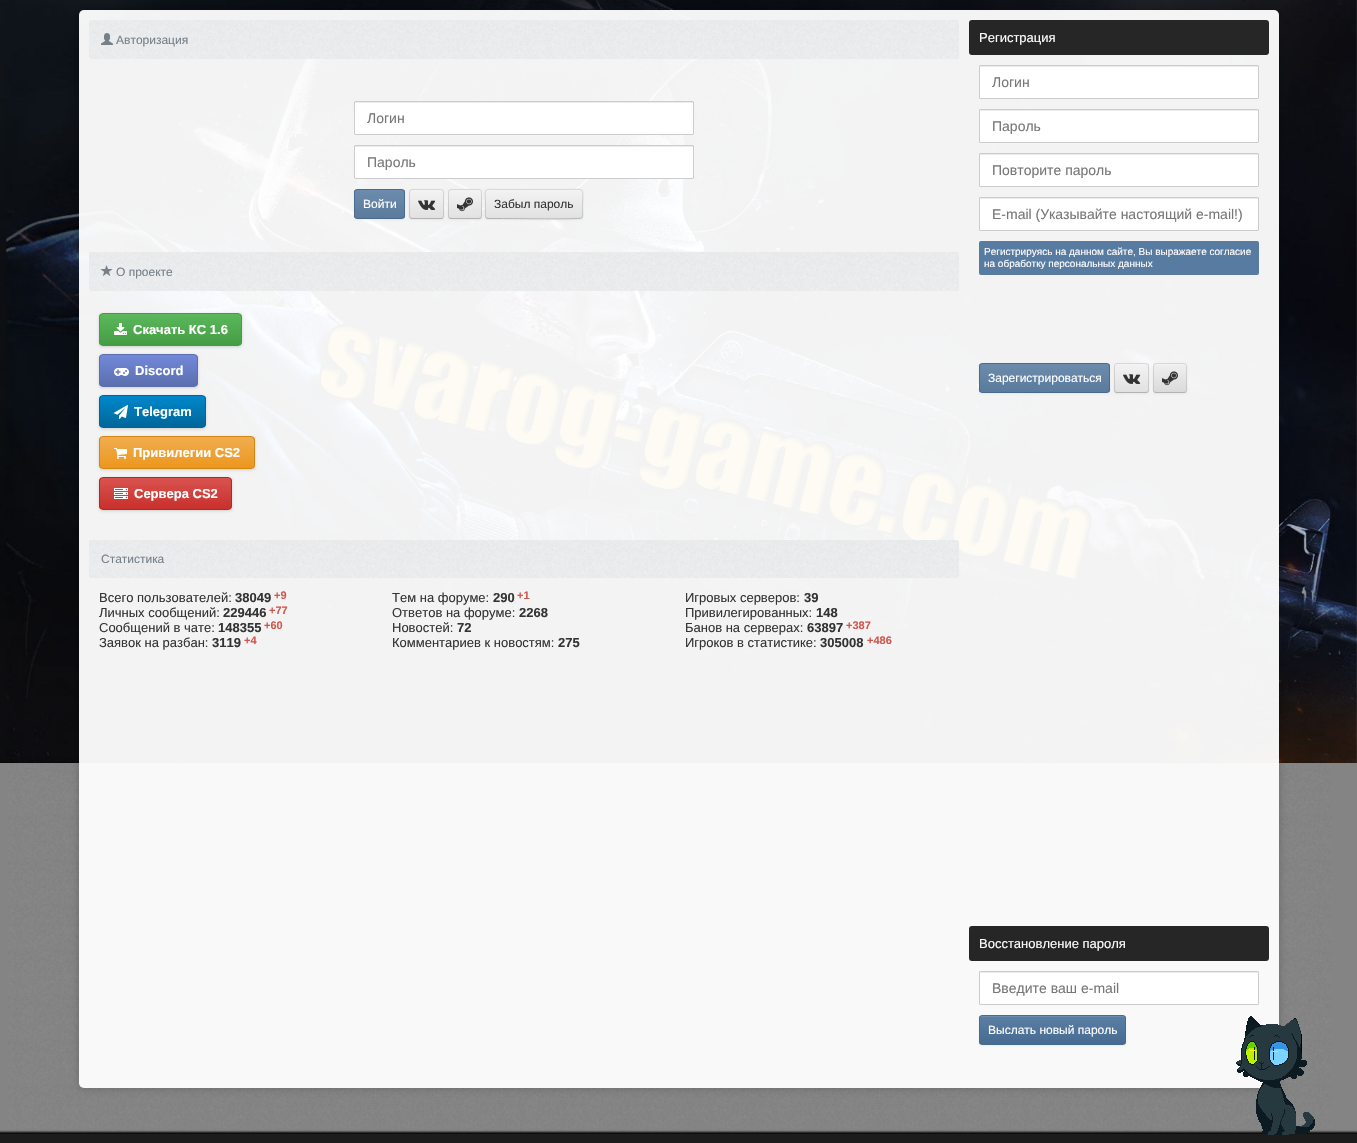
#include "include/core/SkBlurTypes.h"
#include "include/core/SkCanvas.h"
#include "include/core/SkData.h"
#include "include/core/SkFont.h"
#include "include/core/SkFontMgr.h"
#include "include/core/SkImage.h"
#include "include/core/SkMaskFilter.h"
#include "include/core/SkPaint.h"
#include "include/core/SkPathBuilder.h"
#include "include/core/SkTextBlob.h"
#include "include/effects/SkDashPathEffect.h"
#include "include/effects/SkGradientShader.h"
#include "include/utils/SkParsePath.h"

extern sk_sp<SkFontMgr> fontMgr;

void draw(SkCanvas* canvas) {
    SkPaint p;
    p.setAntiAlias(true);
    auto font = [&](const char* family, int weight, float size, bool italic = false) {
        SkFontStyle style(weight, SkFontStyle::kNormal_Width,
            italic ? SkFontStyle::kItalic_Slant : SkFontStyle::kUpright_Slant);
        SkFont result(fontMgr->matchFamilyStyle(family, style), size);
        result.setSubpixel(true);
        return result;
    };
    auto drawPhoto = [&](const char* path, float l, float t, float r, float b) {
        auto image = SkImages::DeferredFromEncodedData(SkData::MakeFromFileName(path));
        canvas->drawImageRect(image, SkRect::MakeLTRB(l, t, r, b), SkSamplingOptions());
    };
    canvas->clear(0xFF848484);
    drawPhoto("media/1.png", 8, 763, 1332, 1133);
    drawPhoto("media/2.png", 0, 0, 1357, 763);
    canvas->save();
    canvas->clipPath(SkPathBuilder(SkPathFillType::kEvenOdd).moveTo(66, 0).lineTo(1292, 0).lineTo(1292, 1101).lineTo(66, 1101).close().moveTo(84, 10).lineTo(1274, 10).cubicTo(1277, 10, 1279, 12, 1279, 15).lineTo(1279, 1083).cubicTo(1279, 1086, 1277, 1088, 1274, 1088).lineTo(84, 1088).cubicTo(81, 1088, 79, 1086, 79, 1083).lineTo(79, 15).cubicTo(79, 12, 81, 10, 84, 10).close().detach(), true);
    p.setColor(0x33000000);
    p.setMaskFilter(SkMaskFilter::MakeBlur(kNormal_SkBlurStyle, 4));
    canvas->drawRoundRect(SkRect::MakeLTRB(79, 10, 1279, 1088), 5, 5, p);
    p.setMaskFilter(nullptr);
    canvas->restore();
    p.setColor(0xF2FFFFFF);
    canvas->drawRoundRect(SkRect::MakeLTRB(79, 10, 1279, 1088), 5, 5, p);
    p.setColor(0xFFEDEFF1);
    canvas->drawRoundRect(SkRect::MakeLTRB(89, 20, 959, 59), 3, 3, p);
    drawPhoto("media/3.png", 89, 20, 959, 59);
    drawPhoto("media/4.png", 101, 33, 113, 45);
    auto font1 = font("Liberation Sans", 400, 12);
    p.setColor(0xFF768089);
    canvas->drawString("Авторизация", 116, 44, font1, p);
    p.setColor(0xFFFFFFFF);
    canvas->drawRoundRect(SkRect::MakeLTRB(354, 101, 694, 135), 1, 1, p);
    p.setColor(0xFFECECEC);
    canvas->drawRect(SkRect::MakeLTRB(355, 102, 693, 103), p);
    p.setStyle(SkPaint::kStroke_Style);
    p.setStrokeWidth(1);
    p.setColor(0xFFCCCCCC);
    canvas->drawRoundRect(SkRect::MakeLTRB(354.5f, 101.5f, 693.5f, 134.5f), 0.5f, 0.5f, p);
    auto font2 = font("Liberation Sans", 400, 14);
    p.setStyle(SkPaint::kFill_Style);
    p.setColor(0xFF777777);
    canvas->drawString("Логин", 367, 123, font2, p);
    p.setColor(0xFFFFFFFF);
    canvas->drawRoundRect(SkRect::MakeLTRB(354, 145, 694, 179), 1, 1, p);
    p.setColor(0xFFECECEC);
    canvas->drawRect(SkRect::MakeLTRB(355, 146, 693, 147), p);
    p.setStyle(SkPaint::kStroke_Style);
    p.setColor(0xFFCCCCCC);
    canvas->drawRoundRect(SkRect::MakeLTRB(354.5f, 145.5f, 693.5f, 178.5f), 0.5f, 0.5f, p);
    p.setStyle(SkPaint::kFill_Style);
    p.setColor(0xFF777777);
    canvas->drawString("Пароль", 367, 167, font2, p);
    p.setColor(0x0D000000);
    p.setMaskFilter(SkMaskFilter::MakeBlur(kNormal_SkBlurStyle, 1));
    canvas->drawRoundRect(SkRect::MakeLTRB(409, 190, 444, 220), 3, 3, p);
    p.setMaskFilter(nullptr);
    p.setColor(0xFFF0F0F0);
    canvas->drawRoundRect(SkRect::MakeLTRB(409, 189, 444, 219), 3, 3, p);
    canvas->save();
    canvas->clipPath(SkPathBuilder().moveTo(412, 189).lineTo(441, 189).cubicTo(442.5f, 189, 444, 190.5f, 444, 192).lineTo(444, 216).cubicTo(444, 217.5f, 442.5f, 219, 441, 219).lineTo(412, 219).cubicTo(410.5f, 219, 409, 217.5f, 409, 216).lineTo(409, 192).cubicTo(409, 190.5f, 410.5f, 189, 412, 189).close().detach(), true);
    {
        const SkColor colors[] = {0xFFF0F0F0, 0xFFDADADA};
        const float stops[] = {0, 1};
        const SkPoint ends[] = {{427, 190}, {427, 218}};
        p.setShader(SkGradientShader::MakeLinear(ends, colors, stops, 2, SkTileMode::kClamp));
        p.setAlpha(255);
    }
    canvas->drawRect(SkRect::MakeLTRB(409, 190, 444, 218), p);
    canvas->restore();
    p.setShader(nullptr);
    p.setColor(0x33FFFFFF);
    canvas->drawPath(SkPathBuilder().moveTo(412, 190).cubicTo(411, 190, 410, 191, 410, 192).lineTo(410, 216).cubicTo(410, 217, 411, 218, 412, 218).lineTo(441, 218).cubicTo(442, 218, 443, 217, 443, 216).lineTo(443, 192).cubicTo(443, 191, 442, 190, 441, 190).close().detach(), p);
    p.setStyle(SkPaint::kStroke_Style);
    p.setColor(0xFFB3B3B3);
    canvas->drawPath(SkPathBuilder().moveTo(443, 218).cubicTo(442.5f, 218, 441.5f, 218.5f, 441, 218.5f).lineTo(412, 218.5f).cubicTo(411.5f, 218.5f, 410.5f, 218, 410, 218).detach(), p);
    p.setColor(0x1A000000);
    canvas->drawPath(SkPathBuilder().moveTo(410, 218).cubicTo(409, 216.5f, 409.5f, 213.5f, 409.5f, 212).lineTo(409.5f, 196).cubicTo(409.5f, 189, 409.5f, 189.5f, 417, 189.5f).lineTo(436, 189.5f).cubicTo(443.5f, 189.5f, 443.5f, 189, 443.5f, 196).lineTo(443.5f, 212).cubicTo(443.5f, 213.5f, 444, 216.5f, 443, 218).detach(), p);
    p.setStyle(SkPaint::kFill_Style);
    p.setColor(0x0D000000);
    p.setMaskFilter(SkMaskFilter::MakeBlur(kNormal_SkBlurStyle, 1));
    canvas->drawRoundRect(SkRect::MakeLTRB(354, 190, 405, 220), 3, 3, p);
    p.setMaskFilter(nullptr);
    canvas->save();
    canvas->clipPath(SkPathBuilder().moveTo(357, 189).lineTo(402, 189).cubicTo(403.5f, 189, 405, 190.5f, 405, 192).lineTo(405, 216).cubicTo(405, 217.5f, 403.5f, 219, 402, 219).lineTo(357, 219).cubicTo(355.5f, 219, 354, 217.5f, 354, 216).lineTo(354, 192).cubicTo(354, 190.5f, 355.5f, 189, 357, 189).close().detach(), true);
    {
        const SkColor colors[] = {0xFF5B7EA4, 0xFF486B91};
        const float stops[] = {0, 1};
        const SkPoint ends[] = {{380, 190}, {380, 218}};
        p.setShader(SkGradientShader::MakeLinear(ends, colors, stops, 2, SkTileMode::kClamp));
        p.setAlpha(255);
    }
    canvas->drawRect(SkRect::MakeLTRB(354, 190, 405, 218), p);
    canvas->restore();
    p.setShader(nullptr);
    p.setColor(0x1AFFFFFF);
    canvas->drawPath(SkPathBuilder().moveTo(357, 190).cubicTo(356, 190, 355, 191, 355, 192).lineTo(355, 216).cubicTo(355, 217, 356, 218, 357, 218).lineTo(402, 218).cubicTo(403, 218, 404, 217, 404, 216).lineTo(404, 192).cubicTo(404, 191, 403, 190, 402, 190).close().detach(), p);
    p.setStyle(SkPaint::kStroke_Style);
    p.setColor(0xFF486B91);
    canvas->drawRoundRect(SkRect::MakeLTRB(354.5f, 189.5f, 404.5f, 218.5f), 2.5f, 2.5f, p);
    p.setStyle(SkPaint::kFill_Style);
    p.setColor(0xFFFFFFFF);
    canvas->drawString("Войти", 363, 208, font1, p);
    drawPhoto("media/5.png", 418, 200, 436, 210);
    p.setColor(0x0D000000);
    p.setMaskFilter(SkMaskFilter::MakeBlur(kNormal_SkBlurStyle, 1));
    canvas->drawRoundRect(SkRect::MakeLTRB(448, 190, 482, 220), 3, 3, p);
    p.setMaskFilter(nullptr);
    p.setColor(0xFFF0F0F0);
    canvas->drawRoundRect(SkRect::MakeLTRB(448, 189, 482, 219), 3, 3, p);
    canvas->save();
    canvas->clipPath(SkPathBuilder().moveTo(451, 189).lineTo(479, 189).cubicTo(480.5f, 189, 482, 190.5f, 482, 192).lineTo(482, 216).cubicTo(482, 217.5f, 480.5f, 219, 479, 219).lineTo(451, 219).cubicTo(449.5f, 219, 448, 217.5f, 448, 216).lineTo(448, 192).cubicTo(448, 190.5f, 449.5f, 189, 451, 189).close().detach(), true);
    {
        const SkColor colors[] = {0xFFF0F0F0, 0xFFDADADA};
        const float stops[] = {0, 1};
        const SkPoint ends[] = {{465, 190}, {465, 218}};
        p.setShader(SkGradientShader::MakeLinear(ends, colors, stops, 2, SkTileMode::kClamp));
        p.setAlpha(255);
    }
    canvas->drawRect(SkRect::MakeLTRB(448, 190, 482, 218), p);
    canvas->restore();
    p.setShader(nullptr);
    p.setColor(0x33FFFFFF);
    canvas->drawPath(SkPathBuilder().moveTo(451, 190).cubicTo(450, 190, 449, 191, 449, 192).lineTo(449, 216).cubicTo(449, 217, 450, 218, 451, 218).lineTo(479, 218).cubicTo(480, 218, 481, 217, 481, 216).lineTo(481, 192).cubicTo(481, 191, 480, 190, 479, 190).close().detach(), p);
    p.setStyle(SkPaint::kStroke_Style);
    p.setColor(0xFFB3B3B3);
    canvas->drawPath(SkPathBuilder().moveTo(481, 218).cubicTo(480.5f, 218, 479.5f, 218.5f, 479, 218.5f).lineTo(451, 218.5f).cubicTo(450.5f, 218.5f, 449.5f, 218, 449, 218).detach(), p);
    p.setColor(0x1A000000);
    canvas->drawPath(SkPathBuilder().moveTo(449, 218).cubicTo(448, 216.5f, 448.5f, 213.5f, 448.5f, 212).lineTo(448.5f, 196).cubicTo(448.5f, 189, 448.5f, 189.5f, 455.5f, 189.5f).lineTo(474.5f, 189.5f).cubicTo(481.5f, 189.5f, 481.5f, 189, 481.5f, 196).lineTo(481.5f, 212).cubicTo(481.5f, 213.5f, 482, 216.5f, 481, 218).detach(), p);
    drawPhoto("media/6.png", 457, 197, 473, 212);
    p.setStyle(SkPaint::kFill_Style);
    p.setColor(0x0D000000);
    p.setMaskFilter(SkMaskFilter::MakeBlur(kNormal_SkBlurStyle, 1));
    canvas->drawRoundRect(SkRect::MakeLTRB(485, 190, 583, 220), 3, 3, p);
    p.setMaskFilter(nullptr);
    p.setColor(0xFFF0F0F0);
    canvas->drawRoundRect(SkRect::MakeLTRB(485, 189, 583, 219), 3, 3, p);
    canvas->save();
    canvas->clipPath(SkPathBuilder().moveTo(488, 189).lineTo(580, 189).cubicTo(581.5f, 189, 583, 190.5f, 583, 192).lineTo(583, 216).cubicTo(583, 217.5f, 581.5f, 219, 580, 219).lineTo(488, 219).cubicTo(486.5f, 219, 485, 217.5f, 485, 216).lineTo(485, 192).cubicTo(485, 190.5f, 486.5f, 189, 488, 189).close().detach(), true);
    {
        const SkColor colors[] = {0xFFF0F0F0, 0xFFDADADA};
        const float stops[] = {0, 1};
        const SkPoint ends[] = {{534, 190}, {534, 218}};
        p.setShader(SkGradientShader::MakeLinear(ends, colors, stops, 2, SkTileMode::kClamp));
        p.setAlpha(255);
    }
    canvas->drawRect(SkRect::MakeLTRB(485, 190, 583, 218), p);
    canvas->restore();
    p.setShader(nullptr);
    p.setColor(0x33FFFFFF);
    canvas->drawPath(SkPathBuilder().moveTo(488, 190).cubicTo(487, 190, 486, 191, 486, 192).lineTo(486, 216).cubicTo(486, 217, 487, 218, 488, 218).lineTo(580, 218).cubicTo(581, 218, 582, 217, 582, 216).lineTo(582, 192).cubicTo(582, 191, 581, 190, 580, 190).close().detach(), p);
    p.setStyle(SkPaint::kStroke_Style);
    p.setColor(0xFFB3B3B3);
    canvas->drawPath(SkPathBuilder().moveTo(582, 218).lineTo(581.5f, 218).cubicTo(579.5f, 219.5f, 511.5f, 218.5f, 503.5f, 218.5f).lineTo(488, 218.5f).lineTo(486, 218).detach(), p);
    p.setColor(0x1A000000);
    canvas->drawPath(SkPathBuilder().moveTo(486, 218).cubicTo(484.5f, 216, 485.5f, 210, 485.5f, 208).cubicTo(485.5f, 186, 481, 189.5f, 503.5f, 189.5f).lineTo(564.5f, 189.5f).cubicTo(587, 189.5f, 582.5f, 186, 582.5f, 208).cubicTo(582.5f, 210, 583.5f, 216, 582, 218).detach(), p);
    p.setStyle(SkPaint::kFill_Style);
    p.setColor(0xFF333333);
    canvas->drawString("Забыл пароль", 494, 208, font1, p);
    p.setColor(0xFFEDEFF1);
    canvas->drawRoundRect(SkRect::MakeLTRB(89, 252, 959, 291), 3, 3, p);
    drawPhoto("media/7.png", 89, 252, 959, 291);
    drawPhoto("media/8.png", 100, 265, 113, 276);
    p.setColor(0xFF768089);
    canvas->drawString("О проекте", 116, 276, font1, p);
    p.setColor(0x26000000);
    p.setMaskFilter(SkMaskFilter::MakeBlur(kNormal_SkBlurStyle, 1.5f));
    canvas->drawRoundRect(SkRect::MakeLTRB(99, 314, 242, 347), 4, 4, p);
    p.setMaskFilter(nullptr);
    canvas->save();
    canvas->clipPath(SkPathBuilder().moveTo(103, 313).lineTo(238, 313).cubicTo(240, 313, 242, 315, 242, 317).lineTo(242, 342).cubicTo(242, 344, 240, 346, 238, 346).lineTo(103, 346).cubicTo(101, 346, 99, 344, 99, 342).lineTo(99, 317).cubicTo(99, 315, 101, 313, 103, 313).close().detach(), true);
    {
        const SkColor colors[] = {0xFF5CB85C, 0xFF449D44};
        const float stops[] = {0, 1};
        const SkPoint ends[] = {{171, 314}, {171, 345}};
        p.setShader(SkGradientShader::MakeLinear(ends, colors, stops, 2, SkTileMode::kClamp));
        p.setAlpha(255);
    }
    canvas->drawRect(SkRect::MakeLTRB(99, 314, 242, 345), p);
    canvas->restore();
    p.setStyle(SkPaint::kStroke_Style);
    p.setShader(nullptr);
    p.setColor(0xFF449D44);
    canvas->drawRoundRect(SkRect::MakeLTRB(99.5f, 313.5f, 241.5f, 345.5f), 3.5f, 3.5f, p);
    drawPhoto("media/9.png", 114, 323, 127, 335);
    auto font3 = font("Liberation Sans", 700, 13);
    p.setStyle(SkPaint::kFill_Style);
    p.setColor(0xFFFFFFFF);
    canvas->drawString("Скачать КС 1.6", 133, 334, font3, p);
    p.setColor(0x26000000);
    p.setMaskFilter(SkMaskFilter::MakeBlur(kNormal_SkBlurStyle, 1.5f));
    canvas->drawRoundRect(SkRect::MakeLTRB(99, 355, 198, 388), 4, 4, p);
    p.setMaskFilter(nullptr);
    canvas->save();
    canvas->clipPath(SkPathBuilder().moveTo(103, 354).lineTo(194, 354).cubicTo(196, 354, 198, 356, 198, 358).lineTo(198, 383).cubicTo(198, 385, 196, 387, 194, 387).lineTo(103, 387).cubicTo(101, 387, 99, 385, 99, 383).lineTo(99, 358).cubicTo(99, 356, 101, 354, 103, 354).close().detach(), true);
    {
        const SkColor colors[] = {0xFF7289DA, 0xFF5B6EAE};
        const float stops[] = {0, 1};
        const SkPoint ends[] = {{149, 355}, {149, 386}};
        p.setShader(SkGradientShader::MakeLinear(ends, colors, stops, 2, SkTileMode::kClamp));
        p.setAlpha(255);
    }
    canvas->drawRect(SkRect::MakeLTRB(99, 355, 198, 386), p);
    canvas->restore();
    p.setStyle(SkPaint::kStroke_Style);
    p.setShader(nullptr);
    p.setColor(0xFF5B6EAE);
    canvas->drawRoundRect(SkRect::MakeLTRB(99.5f, 354.5f, 197.5f, 386.5f), 3.5f, 3.5f, p);
    drawPhoto("media/10.png", 114, 368, 129, 376);
    p.setStyle(SkPaint::kFill_Style);
    p.setColor(0xFFFFFFFF);
    canvas->drawString("Discord", 135, 375, font3, p);
    p.setColor(0x26000000);
    p.setMaskFilter(SkMaskFilter::MakeBlur(kNormal_SkBlurStyle, 1.5f));
    canvas->drawRoundRect(SkRect::MakeLTRB(99, 396, 206, 429), 4, 4, p);
    p.setMaskFilter(nullptr);
    canvas->save();
    canvas->clipPath(SkPathBuilder().moveTo(103, 395).lineTo(202, 395).cubicTo(204, 395, 206, 397, 206, 399).lineTo(206, 424).cubicTo(206, 426, 204, 428, 202, 428).lineTo(103, 428).cubicTo(101, 428, 99, 426, 99, 424).lineTo(99, 399).cubicTo(99, 397, 101, 395, 103, 395).close().detach(), true);
    {
        const SkColor colors[] = {0xFF0088CC, 0xFF006699};
        const float stops[] = {0, 1};
        const SkPoint ends[] = {{153, 396}, {153, 427}};
        p.setShader(SkGradientShader::MakeLinear(ends, colors, stops, 2, SkTileMode::kClamp));
        p.setAlpha(255);
    }
    canvas->drawRect(SkRect::MakeLTRB(99, 396, 206, 427), p);
    canvas->restore();
    p.setStyle(SkPaint::kStroke_Style);
    p.setShader(nullptr);
    p.setColor(0xFF006699);
    canvas->drawRoundRect(SkRect::MakeLTRB(99.5f, 395.5f, 205.5f, 427.5f), 3.5f, 3.5f, p);
    drawPhoto("media/11.png", 114, 405, 128, 419);
    p.setStyle(SkPaint::kFill_Style);
    p.setColor(0xFFFFFFFF);
    canvas->drawString("Telegram", 134, 416, font3, p);
    p.setColor(0x26000000);
    p.setMaskFilter(SkMaskFilter::MakeBlur(kNormal_SkBlurStyle, 1.5f));
    canvas->drawRoundRect(SkRect::MakeLTRB(99, 437, 255, 470), 4, 4, p);
    p.setMaskFilter(nullptr);
    canvas->save();
    canvas->clipPath(SkPathBuilder().moveTo(103, 436).lineTo(251, 436).cubicTo(253, 436, 255, 438, 255, 440).lineTo(255, 465).cubicTo(255, 467, 253, 469, 251, 469).lineTo(103, 469).cubicTo(101, 469, 99, 467, 99, 465).lineTo(99, 440).cubicTo(99, 438, 101, 436, 103, 436).close().detach(), true);
    {
        const SkColor colors[] = {0xFFF0AD4E, 0xFFEC971F};
        const float stops[] = {0, 1};
        const SkPoint ends[] = {{177, 437}, {177, 468}};
        p.setShader(SkGradientShader::MakeLinear(ends, colors, stops, 2, SkTileMode::kClamp));
        p.setAlpha(255);
    }
    canvas->drawRect(SkRect::MakeLTRB(99, 437, 255, 468), p);
    canvas->restore();
    p.setStyle(SkPaint::kStroke_Style);
    p.setShader(nullptr);
    p.setColor(0xFFD58512);
    canvas->drawRoundRect(SkRect::MakeLTRB(99.5f, 436.5f, 254.5f, 468.5f), 3.5f, 3.5f, p);
    drawPhoto("media/12.png", 114, 448, 127, 459);
    p.setStyle(SkPaint::kFill_Style);
    p.setColor(0xFFFFFFFF);
    canvas->drawString("Привилегии CS2", 133, 457, font3, p);
    p.setColor(0x26000000);
    p.setMaskFilter(SkMaskFilter::MakeBlur(kNormal_SkBlurStyle, 1.5f));
    canvas->drawRoundRect(SkRect::MakeLTRB(99, 478, 232, 511), 4, 4, p);
    p.setMaskFilter(nullptr);
    canvas->save();
    canvas->clipPath(SkPathBuilder().moveTo(103, 477).lineTo(228, 477).cubicTo(230, 477, 232, 479, 232, 481).lineTo(232, 506).cubicTo(232, 508, 230, 510, 228, 510).lineTo(103, 510).cubicTo(101, 510, 99, 508, 99, 506).lineTo(99, 481).cubicTo(99, 479, 101, 477, 103, 477).close().detach(), true);
    {
        const SkColor colors[] = {0xFFD9534F, 0xFFC9302C};
        const float stops[] = {0, 1};
        const SkPoint ends[] = {{166, 478}, {166, 509}};
        p.setShader(SkGradientShader::MakeLinear(ends, colors, stops, 2, SkTileMode::kClamp));
        p.setAlpha(255);
    }
    canvas->drawRect(SkRect::MakeLTRB(99, 478, 232, 509), p);
    canvas->restore();
    p.setStyle(SkPaint::kStroke_Style);
    p.setShader(nullptr);
    p.setColor(0xFFAC2925);
    canvas->drawRoundRect(SkRect::MakeLTRB(99.5f, 477.5f, 231.5f, 509.5f), 3.5f, 3.5f, p);
    drawPhoto("media/13.png", 114, 488, 128, 499);
    p.setStyle(SkPaint::kFill_Style);
    p.setColor(0xFFFFFFFF);
    canvas->drawString("Сервера CS2", 134, 498, font3, p);
    p.setColor(0xFFEDEFF1);
    canvas->drawRoundRect(SkRect::MakeLTRB(89, 540, 959, 578), 3, 3, p);
    drawPhoto("media/14.png", 89, 540, 959, 578);
    p.setColor(0xFF768089);
    canvas->drawString("Статистика", 101, 563, font1, p);
    auto font4 = font("Liberation Sans", 400, 13);
    p.setColor(0xFF333333);
    canvas->drawString("Всего пользователей:", 99, 602, font4, p);
    canvas->drawString("38049", 235, 602, font3, p);
    auto font5 = font("Liberation Sans", 700, 11);
    p.setColor(0xFFD1574D);
    canvas->drawString("+9", 274, 599, font5, p);
    p.setColor(0xFF333333);
    canvas->drawString("Личных сообщений:", 99, 617, font4, p);
    canvas->drawString("229446", 223, 617, font3, p);
    p.setColor(0xFFD1574D);
    canvas->drawString("+77", 269, 614, font5, p);
    p.setColor(0xFF333333);
    canvas->drawString("Сообщений в чате:", 99, 632, font4, p);
    canvas->drawString("148355", 218, 632, font3, p);
    p.setColor(0xFFD1574D);
    canvas->drawString("+60", 264, 629, font5, p);
    p.setColor(0xFF333333);
    canvas->drawString("Заявок на разбан:", 99, 647, font4, p);
    canvas->drawString("3119", 212, 647, font3, p);
    p.setColor(0xFFD1574D);
    canvas->drawString("+4", 244, 644, font5, p);
    p.setColor(0xFF333333);
    canvas->drawString("Тем на форуме:", 392, 602, font4, p);
    canvas->drawString("290", 493, 602, font3, p);
    p.setColor(0xFFD1574D);
    canvas->drawString("+1", 517, 599, font5, p);
    p.setColor(0xFF333333);
    canvas->drawString("Ответов на форуме:", 392, 617, font4, p);
    canvas->drawString("2268", 519, 617, font3, p);
    canvas->drawString("Новостей:", 392, 632, font4, p);
    canvas->drawString("72", 457, 632, font3, p);
    canvas->drawString("Комментариев к новостям:", 392, 647, font4, p);
    canvas->drawString("275", 558, 647, font3, p);
    canvas->drawString("Игровых серверов:", 685, 602, font4, p);
    canvas->drawString("39", 804, 602, font3, p);
    canvas->drawString("Привилегированных:", 685, 617, font4, p);
    canvas->drawString("148", 816, 617, font3, p);
    canvas->drawString("Банов на серверах:", 685, 632, font4, p);
    canvas->drawString("63897", 807, 632, font3, p);
    p.setColor(0xFFD1574D);
    canvas->drawString("+387", 846, 629, font5, p);
    p.setColor(0xFF333333);
    canvas->drawString("Игроков в статистике:", 685, 647, font4, p);
    canvas->drawString("305008", 820, 647, font3, p);
    p.setColor(0xFFD1574D);
    canvas->drawString("+486", 867, 644, font5, p);
    p.setColor(0xFF262626);
    canvas->drawRoundRect(SkRect::MakeLTRB(969, 20, 1269, 55), 3, 3, p);
    p.setColor(0xFFFFFFFF);
    canvas->drawString("Регистрация", 979, 42, font4, p);
    canvas->drawRoundRect(SkRect::MakeLTRB(979, 65, 1259, 99), 1, 1, p);
    p.setColor(0xFFECECEC);
    canvas->drawRect(SkRect::MakeLTRB(980, 66, 1258, 67), p);
    p.setStyle(SkPaint::kStroke_Style);
    p.setColor(0xFFCCCCCC);
    canvas->drawRoundRect(SkRect::MakeLTRB(979.5f, 65.5f, 1258.5f, 98.5f), 0.5f, 0.5f, p);
    p.setStyle(SkPaint::kFill_Style);
    p.setColor(0xFF777777);
    canvas->drawString("Логин", 992, 87, font2, p);
    p.setColor(0xFFFFFFFF);
    canvas->drawRoundRect(SkRect::MakeLTRB(979, 109, 1259, 143), 1, 1, p);
    p.setColor(0xFFECECEC);
    canvas->drawRect(SkRect::MakeLTRB(980, 110, 1258, 111), p);
    p.setStyle(SkPaint::kStroke_Style);
    p.setColor(0xFFCCCCCC);
    canvas->drawRoundRect(SkRect::MakeLTRB(979.5f, 109.5f, 1258.5f, 142.5f), 0.5f, 0.5f, p);
    p.setStyle(SkPaint::kFill_Style);
    p.setColor(0xFF777777);
    canvas->drawString("Пароль", 992, 131, font2, p);
    p.setColor(0xFFFFFFFF);
    canvas->drawRoundRect(SkRect::MakeLTRB(979, 153, 1259, 187), 1, 1, p);
    p.setColor(0xFFECECEC);
    canvas->drawRect(SkRect::MakeLTRB(980, 154, 1258, 155), p);
    p.setStyle(SkPaint::kStroke_Style);
    p.setColor(0xFFCCCCCC);
    canvas->drawRoundRect(SkRect::MakeLTRB(979.5f, 153.5f, 1258.5f, 186.5f), 0.5f, 0.5f, p);
    p.setStyle(SkPaint::kFill_Style);
    p.setColor(0xFF777777);
    canvas->drawString("Повторите пароль", 992, 175, font2, p);
    p.setColor(0xFFFFFFFF);
    canvas->drawRoundRect(SkRect::MakeLTRB(979, 197, 1259, 231), 1, 1, p);
    p.setColor(0xFFECECEC);
    canvas->drawRect(SkRect::MakeLTRB(980, 198, 1258, 199), p);
    p.setStyle(SkPaint::kStroke_Style);
    p.setColor(0xFFCCCCCC);
    canvas->drawRoundRect(SkRect::MakeLTRB(979.5f, 197.5f, 1258.5f, 230.5f), 0.5f, 0.5f, p);
    p.setStyle(SkPaint::kFill_Style);
    p.setColor(0xFF777777);
    canvas->drawString("E-mail (Указывайте настоящий e-mail!)", 992, 219, font2, p);
    p.setColor(0xFF587BA1);
    canvas->drawRoundRect(SkRect::MakeLTRB(979, 241, 1259, 275), 2, 2, p);
    auto font6 = font("Liberation Sans", 400, 10);
    p.setColor(0xFFFFFFFF);
    canvas->drawString("Регистрируясь на данном сайте, Вы выражаете согласие", 984, 255, font6, p);
    canvas->drawString("на обработку персональных данных", 984, 267, font6, p);
    p.setColor(0x0D000000);
    p.setMaskFilter(SkMaskFilter::MakeBlur(kNormal_SkBlurStyle, 1));
    canvas->drawRoundRect(SkRect::MakeLTRB(979, 364, 1110, 394), 3, 3, p);
    p.setMaskFilter(nullptr);
    canvas->save();
    canvas->clipPath(SkPathBuilder().moveTo(982, 363).lineTo(1107, 363).cubicTo(1108.5f, 363, 1110, 364.5f, 1110, 366).lineTo(1110, 390).cubicTo(1110, 391.5f, 1108.5f, 393, 1107, 393).lineTo(982, 393).cubicTo(980.5f, 393, 979, 391.5f, 979, 390).lineTo(979, 366).cubicTo(979, 364.5f, 980.5f, 363, 982, 363).close().detach(), true);
    {
        const SkColor colors[] = {0xFF5B7EA4, 0xFF486B91};
        const float stops[] = {0, 1};
        const SkPoint ends[] = {{1045, 364}, {1045, 392}};
        p.setShader(SkGradientShader::MakeLinear(ends, colors, stops, 2, SkTileMode::kClamp));
        p.setAlpha(255);
    }
    canvas->drawRect(SkRect::MakeLTRB(979, 364, 1110, 392), p);
    canvas->restore();
    p.setShader(nullptr);
    p.setColor(0x1AFFFFFF);
    canvas->drawPath(SkPathBuilder().moveTo(982, 364).cubicTo(981, 364, 980, 365, 980, 366).lineTo(980, 390).cubicTo(980, 391, 981, 392, 982, 392).lineTo(1107, 392).cubicTo(1108, 392, 1109, 391, 1109, 390).lineTo(1109, 366).cubicTo(1109, 365, 1108, 364, 1107, 364).close().detach(), p);
    p.setStyle(SkPaint::kStroke_Style);
    p.setColor(0xFF486B91);
    canvas->drawRoundRect(SkRect::MakeLTRB(979.5f, 363.5f, 1109.5f, 392.5f), 2.5f, 2.5f, p);
    p.setStyle(SkPaint::kFill_Style);
    p.setColor(0xFFFFFFFF);
    canvas->drawString("Зарегистрироваться", 988, 382, font1, p);
    p.setColor(0x0D000000);
    p.setMaskFilter(SkMaskFilter::MakeBlur(kNormal_SkBlurStyle, 1));
    canvas->drawRoundRect(SkRect::MakeLTRB(1114, 364, 1149, 394), 3, 3, p);
    p.setMaskFilter(nullptr);
    p.setColor(0xFFF0F0F0);
    canvas->drawRoundRect(SkRect::MakeLTRB(1114, 363, 1149, 393), 3, 3, p);
    canvas->save();
    canvas->clipPath(SkPathBuilder().moveTo(1117, 363).lineTo(1146, 363).cubicTo(1147.5f, 363, 1149, 364.5f, 1149, 366).lineTo(1149, 390).cubicTo(1149, 391.5f, 1147.5f, 393, 1146, 393).lineTo(1117, 393).cubicTo(1115.5f, 393, 1114, 391.5f, 1114, 390).lineTo(1114, 366).cubicTo(1114, 364.5f, 1115.5f, 363, 1117, 363).close().detach(), true);
    {
        const SkColor colors[] = {0xFFF0F0F0, 0xFFDADADA};
        const float stops[] = {0, 1};
        const SkPoint ends[] = {{1132, 364}, {1132, 392}};
        p.setShader(SkGradientShader::MakeLinear(ends, colors, stops, 2, SkTileMode::kClamp));
        p.setAlpha(255);
    }
    canvas->drawRect(SkRect::MakeLTRB(1114, 364, 1149, 392), p);
    canvas->restore();
    p.setShader(nullptr);
    p.setColor(0x33FFFFFF);
    canvas->drawPath(SkPathBuilder().moveTo(1117, 364).cubicTo(1116, 364, 1115, 365, 1115, 366).lineTo(1115, 390).cubicTo(1115, 391, 1116, 392, 1117, 392).lineTo(1146, 392).cubicTo(1147, 392, 1148, 391, 1148, 390).lineTo(1148, 366).cubicTo(1148, 365, 1147, 364, 1146, 364).close().detach(), p);
    p.setStyle(SkPaint::kStroke_Style);
    p.setColor(0xFFB3B3B3);
    canvas->drawPath(SkPathBuilder().moveTo(1148, 392).cubicTo(1147.5f, 392, 1146.5f, 392.5f, 1146, 392.5f).lineTo(1117, 392.5f).cubicTo(1116.5f, 392.5f, 1115.5f, 392, 1115, 392).detach(), p);
    p.setColor(0x1A000000);
    canvas->drawPath(SkPathBuilder().moveTo(1115, 392).cubicTo(1114, 390.5f, 1114.5f, 387.5f, 1114.5f, 386).lineTo(1114.5f, 370).cubicTo(1114.5f, 363, 1114.5f, 363.5f, 1122, 363.5f).lineTo(1141, 363.5f).cubicTo(1148.5f, 363.5f, 1148.5f, 363, 1148.5f, 370).lineTo(1148.5f, 386).cubicTo(1148.5f, 387.5f, 1149, 390.5f, 1148, 392).detach(), p);
    drawPhoto("media/5.png", 1123, 374, 1141, 384);
    p.setStyle(SkPaint::kFill_Style);
    p.setColor(0x0D000000);
    p.setMaskFilter(SkMaskFilter::MakeBlur(kNormal_SkBlurStyle, 1));
    canvas->drawRoundRect(SkRect::MakeLTRB(1153, 364, 1187, 394), 3, 3, p);
    p.setMaskFilter(nullptr);
    p.setColor(0xFFF0F0F0);
    canvas->drawRoundRect(SkRect::MakeLTRB(1153, 363, 1187, 393), 3, 3, p);
    canvas->save();
    canvas->clipPath(SkPathBuilder().moveTo(1156, 363).lineTo(1184, 363).cubicTo(1185.5f, 363, 1187, 364.5f, 1187, 366).lineTo(1187, 390).cubicTo(1187, 391.5f, 1185.5f, 393, 1184, 393).lineTo(1156, 393).cubicTo(1154.5f, 393, 1153, 391.5f, 1153, 390).lineTo(1153, 366).cubicTo(1153, 364.5f, 1154.5f, 363, 1156, 363).close().detach(), true);
    {
        const SkColor colors[] = {0xFFF0F0F0, 0xFFDADADA};
        const float stops[] = {0, 1};
        const SkPoint ends[] = {{1170, 364}, {1170, 392}};
        p.setShader(SkGradientShader::MakeLinear(ends, colors, stops, 2, SkTileMode::kClamp));
        p.setAlpha(255);
    }
    canvas->drawRect(SkRect::MakeLTRB(1153, 364, 1187, 392), p);
    canvas->restore();
    p.setShader(nullptr);
    p.setColor(0xFFF3F3F3);
    canvas->drawPath(SkPathBuilder().moveTo(1156, 365).lineTo(1184, 365).cubicTo(1185, 365, 1186, 366, 1186, 367).cubicTo(1186, 363, 1183, 364, 1179.5f, 364).lineTo(1160.5f, 364).cubicTo(1157, 364, 1154, 363, 1154, 367).cubicTo(1154, 366, 1155, 365, 1156, 365).close().detach(), p);
    p.setStyle(SkPaint::kStroke_Style);
    p.setColor(0xFFB3B3B3);
    canvas->drawPath(SkPathBuilder().moveTo(1186, 392).cubicTo(1185.5f, 392, 1184.5f, 392.5f, 1184, 392.5f).lineTo(1156, 392.5f).cubicTo(1155.5f, 392.5f, 1154.5f, 392, 1154, 392).detach(), p);
    p.setColor(0x1A000000);
    canvas->drawPath(SkPathBuilder().moveTo(1154, 392).cubicTo(1153, 390.5f, 1153.5f, 387.5f, 1153.5f, 386).lineTo(1153.5f, 370).cubicTo(1153.5f, 363, 1153.5f, 363.5f, 1160.5f, 363.5f).lineTo(1179.5f, 363.5f).cubicTo(1186.5f, 363.5f, 1186.5f, 363, 1186.5f, 370).lineTo(1186.5f, 386).cubicTo(1186.5f, 387.5f, 1187, 390.5f, 1186, 392).detach(), p);
    drawPhoto("media/15.png", 1162, 371, 1178, 386);
    p.setStyle(SkPaint::kFill_Style);
    p.setColor(0xFF262626);
    canvas->drawRoundRect(SkRect::MakeLTRB(969, 926, 1269, 961), 3, 3, p);
    p.setColor(0xFFFFFFFF);
    canvas->drawString("Восстановление пароля", 979, 948, font4, p);
    canvas->drawRoundRect(SkRect::MakeLTRB(979, 971, 1259, 1005), 1, 1, p);
    p.setColor(0xFFECECEC);
    canvas->drawRect(SkRect::MakeLTRB(980, 972, 1258, 973), p);
    p.setStyle(SkPaint::kStroke_Style);
    p.setColor(0xFFCCCCCC);
    canvas->drawRoundRect(SkRect::MakeLTRB(979.5f, 971.5f, 1258.5f, 1004.5f), 0.5f, 0.5f, p);
    p.setStyle(SkPaint::kFill_Style);
    p.setColor(0xFF777777);
    canvas->drawString("Введите ваш e-mail", 992, 993, font2, p);
    p.setColor(0x0D000000);
    p.setMaskFilter(SkMaskFilter::MakeBlur(kNormal_SkBlurStyle, 1));
    canvas->drawRoundRect(SkRect::MakeLTRB(979, 1016, 1126, 1046), 3, 3, p);
    p.setMaskFilter(nullptr);
    canvas->save();
    canvas->clipPath(SkPathBuilder().moveTo(982, 1015).lineTo(1123, 1015).cubicTo(1124.5f, 1015, 1126, 1016.5f, 1126, 1018).lineTo(1126, 1042).cubicTo(1126, 1043.5f, 1124.5f, 1045, 1123, 1045).lineTo(982, 1045).cubicTo(980.5f, 1045, 979, 1043.5f, 979, 1042).lineTo(979, 1018).cubicTo(979, 1016.5f, 980.5f, 1015, 982, 1015).close().detach(), true);
    {
        const SkColor colors[] = {0xFF5B7EA4, 0xFF486B91};
        const float stops[] = {0, 1};
        const SkPoint ends[] = {{1053, 1016}, {1053, 1044}};
        p.setShader(SkGradientShader::MakeLinear(ends, colors, stops, 2, SkTileMode::kClamp));
        p.setAlpha(255);
    }
    canvas->drawRect(SkRect::MakeLTRB(979, 1016, 1126, 1044), p);
    canvas->restore();
    p.setShader(nullptr);
    p.setColor(0x1AFFFFFF);
    canvas->drawPath(SkPathBuilder().moveTo(982, 1017).lineTo(1123, 1017).cubicTo(1124, 1017, 1125, 1018, 1125, 1019).cubicTo(1125, 1018, 1125, 1017, 1124, 1016).lineTo(1006, 1016).cubicTo(1002, 1016, 980, 1011, 980, 1019).cubicTo(980, 1018, 981, 1017, 982, 1017).close().detach(), p);
    p.setStyle(SkPaint::kStroke_Style);
    p.setColor(0xFF486B91);
    canvas->drawRoundRect(SkRect::MakeLTRB(979.5f, 1015.5f, 1125.5f, 1044.5f), 2.5f, 2.5f, p);
    p.setStyle(SkPaint::kFill_Style);
    p.setColor(0xFFFFFFFF);
    canvas->drawString("Выслать новый пароль", 988, 1034, font1, p);
    p.setColor(0xFF000000);
    p.setMaskFilter(SkMaskFilter::MakeBlur(kNormal_SkBlurStyle, 1));
    canvas->drawRect(SkRect::MakeLTRB(-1, 1132, 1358, 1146), p);
    p.setMaskFilter(nullptr);
    p.setColor(0xFF1C1C1C);
    canvas->drawRect(SkRect::MakeLTRB(0, 1134, 1357, 1143), p);
    p.setColor(0xFF0D0D0D);
    canvas->drawRect(SkRect::MakeLTRB(0, 1133, 1357, 1134), p);
    drawPhoto("media/16.png", 1236, 1016, 1315, 1135);
}
